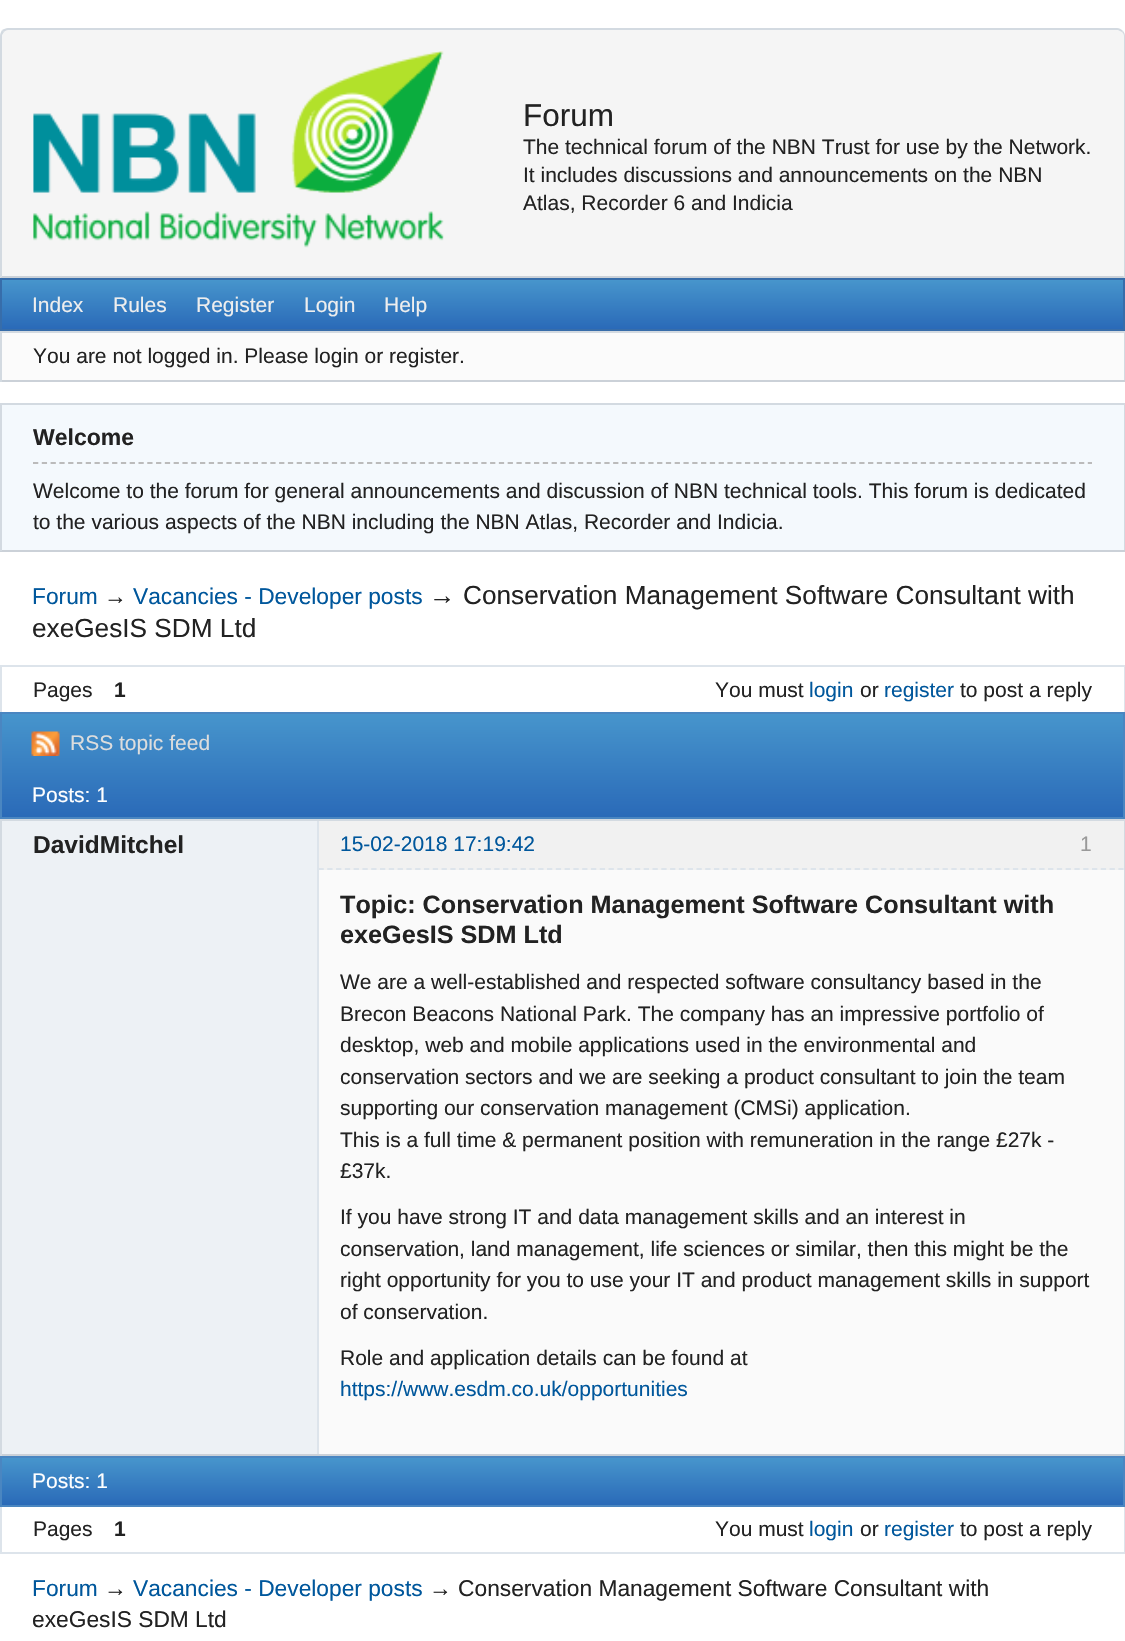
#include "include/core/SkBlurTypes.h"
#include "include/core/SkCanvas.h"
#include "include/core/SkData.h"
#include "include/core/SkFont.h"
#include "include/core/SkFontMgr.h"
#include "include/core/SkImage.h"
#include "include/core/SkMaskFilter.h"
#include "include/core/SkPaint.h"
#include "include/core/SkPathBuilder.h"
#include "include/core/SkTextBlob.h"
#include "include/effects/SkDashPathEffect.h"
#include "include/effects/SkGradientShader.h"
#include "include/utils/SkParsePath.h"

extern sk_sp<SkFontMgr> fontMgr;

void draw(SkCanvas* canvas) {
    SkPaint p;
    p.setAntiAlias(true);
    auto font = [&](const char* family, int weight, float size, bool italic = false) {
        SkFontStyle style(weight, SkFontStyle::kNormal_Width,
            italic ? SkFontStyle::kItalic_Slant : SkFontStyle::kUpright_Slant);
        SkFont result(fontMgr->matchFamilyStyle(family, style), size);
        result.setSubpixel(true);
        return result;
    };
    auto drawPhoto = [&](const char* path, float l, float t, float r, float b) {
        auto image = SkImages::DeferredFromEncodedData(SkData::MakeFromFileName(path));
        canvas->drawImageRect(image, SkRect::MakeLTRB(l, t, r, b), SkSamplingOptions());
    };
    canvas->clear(0xFFFFFFFF);
    p.setColor(0xFFF5F5F5);
    canvas->drawPath(SkPathBuilder().moveTo(9, 28).lineTo(1116, 28).cubicTo(1121, 28, 1125, 32, 1125, 37).lineTo(1125, 278).lineTo(0, 278).lineTo(0, 37).cubicTo(0, 32, 4, 28, 9, 28).close().detach(), p);
    p.setColor(0xFFD3DAE1);
    canvas->drawPath(SkPathBuilder().moveTo(8, 28).cubicTo(6, 28, 4, 29, 2, 30).lineTo(4, 32).cubicTo(5, 31, 6, 30, 8, 30).lineTo(1118, 30).lineTo(1122, 32).lineTo(1123, 31).cubicTo(1121, 29, 1119, 28, 1117, 28).close().detach(), p);
    canvas->drawPath(SkPathBuilder().moveTo(1123, 31).cubicTo(1124, 32, 1125, 34, 1125, 36).lineTo(1125, 278).lineTo(1123, 276).lineTo(1124, 276).lineTo(1124, 36).cubicTo(1124, 34, 1123, 33, 1122, 32).close().detach(), p);
    p.setColor(0xFFCBD1D8);
    canvas->drawPath(SkPathBuilder().moveTo(1125, 278).lineTo(1123, 276).lineTo(2, 276).lineTo(0, 278).close().detach(), p);
    p.setColor(0xFFD3DAE1);
    canvas->drawPath(SkPathBuilder().moveTo(0, 36).lineTo(0, 278).lineTo(2, 276).lineTo(2, 35).lineTo(4, 32).lineTo(2, 30).cubicTo(1, 32, 0, 34, 0, 36).close().detach(), p);
    drawPhoto("media/1.png", 33, 51, 444, 248);
    auto font1 = font("Liberation Sans", 400, 31.5f);
    p.setColor(0xFF222222);
    canvas->drawString("Forum", 523, 126, font1, p);
    auto font2 = font("Liberation Sans", 400, 21);
    {
        const struct { const char* s; float x, y; } items[] = {
            {"The technical forum of the NBN Trust for use by the Network.", 523, 154},
            {"It includes discussions and announcements on the NBN", 523, 182},
            {"Atlas, Recorder 6 and Indicia", 523, 210},
        };
        for (auto [s, x, y] : items) {
            canvas->drawString(s, x, y, font2, p);
        }
    }
    {
        const SkColor colors[] = {0xFF2A6AB8, 0xFF4795CC};
        const float stops[] = {0, 1};
        const SkPoint ends[] = {{563, 329}, {563, 280}};
        p.setShader(SkGradientShader::MakeLinear(ends, colors, stops, 2, SkTileMode::kClamp));
        p.setAlpha(255);
    }
    canvas->drawRect(SkRect::MakeLTRB(2, 280, 1123, 329), p);
    p.setStyle(SkPaint::kStroke_Style);
    p.setStrokeWidth(2);
    p.setShader(nullptr);
    p.setColor(0xFF376DAA);
    canvas->drawRect(SkRect::MakeLTRB(1, 279, 1124, 330), p);
    p.setStyle(SkPaint::kFill_Style);
    p.setColor(0xFFEEEEEE);
    {
        const struct { const char* s; float x, y; } items[] = {
            {"Index", 32, 312},
            {"Rules", 113, 312},
            {"Register", 196, 312},
            {"Login", 304, 312},
            {"Help", 384, 312},
        };
        for (auto [s, x, y] : items) {
            canvas->drawString(s, x, y, font2, p);
        }
    }
    {
        const struct { float l, t, r, b; SkColor color; } items[] = {
            {2, 333, 1124, 380, 0xFFFBFBFB},
            {0, 331, 1125, 333, 0xFFD3DAE1},
            {1124, 331, 1125, 382, 0xFFD3DAE1},
            {0, 380, 1125, 382, 0xFFCBD1D8},
            {0, 331, 2, 382, 0xFFD3DAE1},
        };
        for (auto [l, t, r, b, color] : items) {
            p.setColor(color);
            canvas->drawRect(SkRect::MakeLTRB(l, t, r, b), p);
        }
    }
    p.setColor(0xFF222222);
    canvas->drawString("You are not logged in. Please login or register.", 33, 363, font2, p);
    {
        const struct { float l, t, r, b; SkColor color; } items[] = {
            {2, 405, 1124, 550, 0xFFF4F9FD},
            {0, 403, 1125, 405, 0xFFD3DAE1},
            {1124, 403, 1125, 551, 0xFFD3DAE1},
            {0, 550, 1125, 552, 0xFFCBD1D8},
            {0, 403, 2, 551, 0xFFD3DAE1},
        };
        for (auto [l, t, r, b, color] : items) {
            p.setColor(color);
            canvas->drawRect(SkRect::MakeLTRB(l, t, r, b), p);
        }
    }
    p.setStyle(SkPaint::kStroke_Style);
    p.setStrokeWidth(1.8f);
    p.setColor(0xFFBBBBBB);
    p.setPathEffect(SkDashPathEffect::Make({{5.25f, 3.54f}}, 0));
    canvas->drawPath(SkPathBuilder().moveTo(33, 463).lineTo(1092, 463).detach(), p);
    p.setPathEffect(nullptr);
    auto font3 = font("Liberation Sans", 700, 23);
    p.setStyle(SkPaint::kFill_Style);
    p.setColor(0xFF222222);
    canvas->drawString("Welcome", 33, 445, font3, p);
    canvas->drawString("Welcome to the forum for general announcements and discussion of NBN technical tools. This forum is dedicated", 33, 498, font2, p);
    canvas->drawString("to the various aspects of the NBN including the NBN Atlas, Recorder and Indicia.", 33, 529, font2, p);
    auto font4 = font("Liberation Sans", 400, 22.75f);
    p.setColor(0xFF00579C);
    canvas->drawString("Forum", 32, 604, font4, p);
    p.setColor(0xFF222222);
    canvas->drawString("→", 104, 604, font4, p);
    p.setColor(0xFF00579C);
    canvas->drawString("Vacancies - Developer posts", 133, 604, font4, p);
    auto font5 = font("Liberation Sans", 400, 26.2f);
    p.setColor(0xFF222222);
    {
        const struct { const char* s; float x, y; } items[] = {
            {"→", 429, 604},
            {"Conservation Management Software Consultant with", 463, 604},
            {"exeGesIS SDM Ltd", 32, 637},
        };
        for (auto [s, x, y] : items) {
            canvas->drawString(s, x, y, font5, p);
        }
    }
    {
        const struct { float l, t, r, b; SkColor color; } items[] = {
            {0, 665, 1125, 667, 0xFFDDE4EB},
            {1124, 665, 1125, 712, 0xFFDDE4EB},
            {0, 665, 2, 712, 0xFFDDE4EB},
        };
        for (auto [l, t, r, b, color] : items) {
            p.setColor(color);
            canvas->drawRect(SkRect::MakeLTRB(l, t, r, b), p);
        }
    }
    p.setColor(0xFF222222);
    canvas->drawString("Pages", 33, 697, font2, p);
    auto font6 = font("Liberation Sans", 700, 21);
    canvas->drawString("1", 114, 697, font6, p);
    canvas->drawString("You must", 715, 697, font2, p);
    p.setColor(0xFF00579C);
    canvas->drawString("login", 809, 697, font2, p);
    p.setColor(0xFF222222);
    canvas->drawString("or", 860, 697, font2, p);
    p.setColor(0xFF00579C);
    canvas->drawString("register", 884, 697, font2, p);
    p.setColor(0xFF222222);
    canvas->drawString("to post a reply", 960, 697, font2, p);
    {
        const SkColor colors[] = {0xFF2A6AB8, 0xFF4795CC};
        const float stops[] = {0, 1};
        const SkPoint ends[] = {{563, 817}, {563, 714}};
        p.setShader(SkGradientShader::MakeLinear(ends, colors, stops, 2, SkTileMode::kClamp));
        p.setAlpha(255);
    }
    canvas->drawRect(SkRect::MakeLTRB(2, 714, 1123, 817), p);
    p.setStyle(SkPaint::kStroke_Style);
    p.setStrokeWidth(2);
    p.setShader(nullptr);
    p.setColor(0xFF4A86C1);
    canvas->drawRect(SkRect::MakeLTRB(1, 713, 1124, 818), p);
    drawPhoto("media/2.png", 31, 731, 60, 756);
    p.setStyle(SkPaint::kFill_Style);
    p.setColor(0xFFDDDDDD);
    canvas->drawString("RSS topic feed", 70, 750, font2, p);
    p.setColor(0xFFFFFFFF);
    canvas->drawString("Posts: 1", 32, 802, font2, p);
    {
        const struct { float l, t, r, b; SkColor color; } items[] = {
            {0, 819, 1125, 821, 0xFFD3DAE1},
            {1124, 819, 1125, 1456, 0xFFD3DAE1},
            {0, 1454, 1125, 1456, 0xFFCBD1D8},
            {0, 819, 2, 1456, 0xFFD3DAE1},
            {2, 821, 317, 1454, 0xFFEDF1F5},
            {317, 821, 319, 1454, 0xFFDDE4EB},
            {319, 821, 1124, 870, 0xFFF1F1F1},
        };
        for (auto [l, t, r, b, color] : items) {
            p.setColor(color);
            canvas->drawRect(SkRect::MakeLTRB(l, t, r, b), p);
        }
    }
    p.setStyle(SkPaint::kStroke_Style);
    p.setStrokeWidth(1.8f);
    p.setColor(0xFFDDE4EB);
    p.setPathEffect(SkDashPathEffect::Make({{5.25f, 3.54f}}, 0));
    canvas->drawPath(SkPathBuilder().moveTo(318.5f, 869).lineTo(1123.5f, 869).detach(), p);
    p.setPathEffect(nullptr);
    auto font7 = font("Liberation Sans", 700, 24.5f);
    p.setStyle(SkPaint::kFill_Style);
    p.setColor(0xFF222222);
    canvas->drawString("DavidMitchel", 33, 853, font7, p);
    p.setColor(0xFF00579C);
    canvas->drawString("15-02-2018 17:19:42", 340, 851, font2, p);
    p.setColor(0xFF999999);
    canvas->drawString("1", 1080, 851, font2, p);
    p.setColor(0xFFFAFAFA);
    canvas->drawRect(SkRect::MakeLTRB(319, 870, 1124, 1454), p);
    auto font8 = font("Liberation Sans", 700, 25.2f);
    p.setColor(0xFF222222);
    canvas->drawString("Topic: Conservation Management Software Consultant with", 340, 913, font8, p);
    canvas->drawString("exeGesIS SDM Ltd", 340, 943, font8, p);
    {
        const struct { const char* s; float x, y; } items[] = {
            {"We are a well-established and respected software consultancy based in the", 340, 989},
            {"Brecon Beacons National Park. The company has an impressive portfolio of", 340, 1021},
            {"desktop, web and mobile applications used in the environmental and", 340, 1052},
            {"conservation sectors and we are seeking a product consultant to join the team", 340, 1084},
            {"supporting our conservation management (CMSi) application.", 340, 1115},
            {"This is a full time & permanent position with remuneration in the range £27k -", 340, 1147},
            {"£37k.", 340, 1178},
            {"If you have strong IT and data management skills and an interest in", 340, 1224},
            {"conservation, land management, life sciences or similar, then this might be the", 340, 1256},
            {"right opportunity for you to use your IT and product management skills in support", 340, 1287},
            {"of conservation.", 340, 1319},
            {"Role and application details can be found at", 340, 1365},
        };
        for (auto [s, x, y] : items) {
            canvas->drawString(s, x, y, font2, p);
        }
    }
    p.setColor(0xFF00579C);
    canvas->drawString("https://www.esdm.co.uk/opportunities", 340, 1396, font2, p);
    {
        const SkColor colors[] = {0xFF2A6AB8, 0xFF4795CC};
        const float stops[] = {0, 1};
        const SkPoint ends[] = {{563, 1505}, {563, 1458}};
        p.setShader(SkGradientShader::MakeLinear(ends, colors, stops, 2, SkTileMode::kClamp));
        p.setAlpha(255);
    }
    canvas->drawRect(SkRect::MakeLTRB(2, 1458, 1123, 1505), p);
    p.setStyle(SkPaint::kStroke_Style);
    p.setStrokeWidth(2);
    p.setShader(nullptr);
    p.setColor(0xFF4A86C1);
    canvas->drawRect(SkRect::MakeLTRB(1, 1457, 1124, 1506), p);
    p.setStyle(SkPaint::kFill_Style);
    p.setColor(0xFFFFFFFF);
    canvas->drawString("Posts: 1", 32, 1488, font2, p);
    {
        const struct { float l, t, r, b; SkColor color; } items[] = {
            {1124, 1507, 1125, 1554, 0xFFDDE4EB},
            {0, 1552, 1125, 1554, 0xFFDDE4EB},
            {0, 1507, 2, 1554, 0xFFDDE4EB},
        };
        for (auto [l, t, r, b, color] : items) {
            p.setColor(color);
            canvas->drawRect(SkRect::MakeLTRB(l, t, r, b), p);
        }
    }
    p.setColor(0xFF222222);
    canvas->drawString("Pages", 33, 1536, font2, p);
    canvas->drawString("1", 114, 1536, font6, p);
    canvas->drawString("You must", 715, 1536, font2, p);
    p.setColor(0xFF00579C);
    canvas->drawString("login", 809, 1536, font2, p);
    p.setColor(0xFF222222);
    canvas->drawString("or", 860, 1536, font2, p);
    p.setColor(0xFF00579C);
    canvas->drawString("register", 884, 1536, font2, p);
    p.setColor(0xFF222222);
    canvas->drawString("to post a reply", 960, 1536, font2, p);
    p.setColor(0xFF00579C);
    canvas->drawString("Forum", 32, 1596, font4, p);
    p.setColor(0xFF222222);
    canvas->drawString("→", 104, 1596, font4, p);
    p.setColor(0xFF00579C);
    canvas->drawString("Vacancies - Developer posts", 133, 1596, font4, p);
    p.setColor(0xFF222222);
    canvas->drawString("→ Conservation Management Software Consultant with", 429, 1596, font4, p);
    canvas->drawString("exeGesIS SDM Ltd", 32, 1627, font4, p);
}
